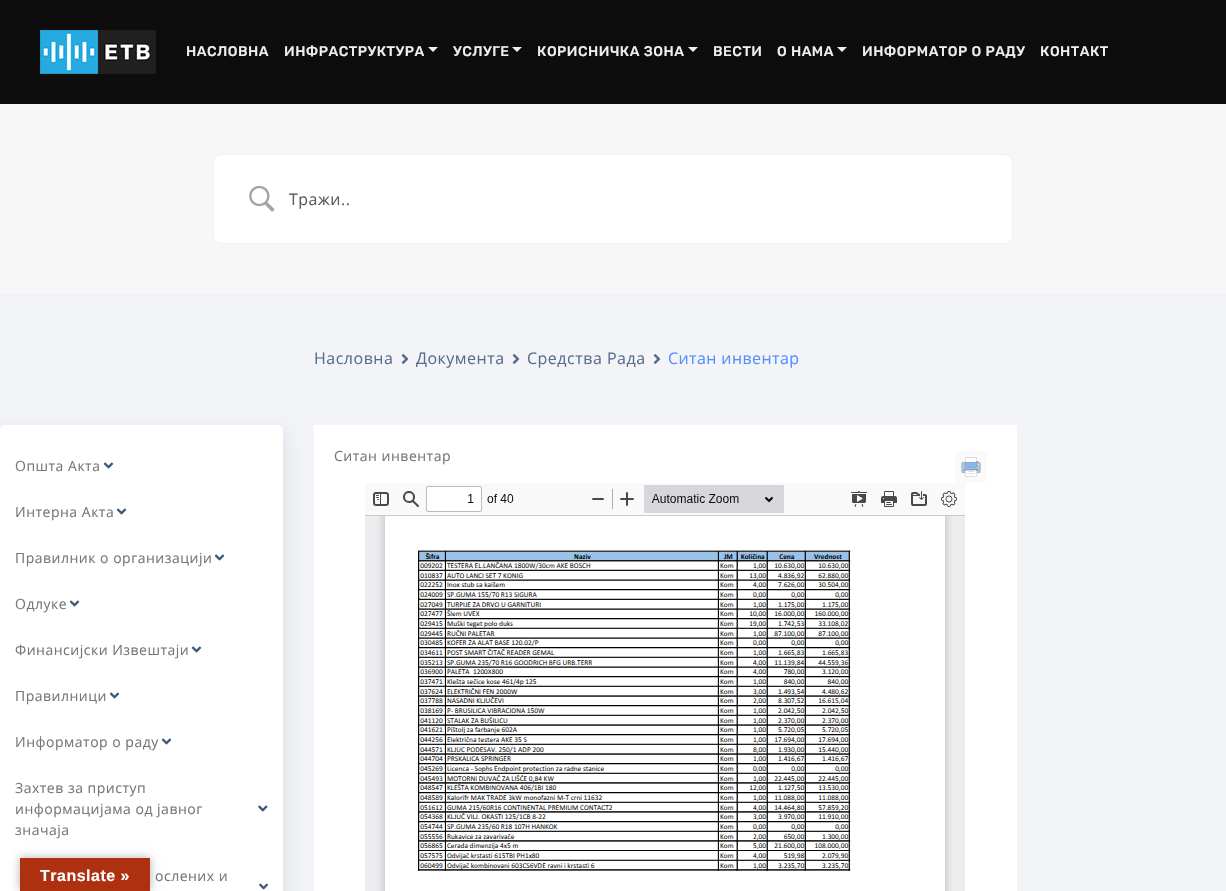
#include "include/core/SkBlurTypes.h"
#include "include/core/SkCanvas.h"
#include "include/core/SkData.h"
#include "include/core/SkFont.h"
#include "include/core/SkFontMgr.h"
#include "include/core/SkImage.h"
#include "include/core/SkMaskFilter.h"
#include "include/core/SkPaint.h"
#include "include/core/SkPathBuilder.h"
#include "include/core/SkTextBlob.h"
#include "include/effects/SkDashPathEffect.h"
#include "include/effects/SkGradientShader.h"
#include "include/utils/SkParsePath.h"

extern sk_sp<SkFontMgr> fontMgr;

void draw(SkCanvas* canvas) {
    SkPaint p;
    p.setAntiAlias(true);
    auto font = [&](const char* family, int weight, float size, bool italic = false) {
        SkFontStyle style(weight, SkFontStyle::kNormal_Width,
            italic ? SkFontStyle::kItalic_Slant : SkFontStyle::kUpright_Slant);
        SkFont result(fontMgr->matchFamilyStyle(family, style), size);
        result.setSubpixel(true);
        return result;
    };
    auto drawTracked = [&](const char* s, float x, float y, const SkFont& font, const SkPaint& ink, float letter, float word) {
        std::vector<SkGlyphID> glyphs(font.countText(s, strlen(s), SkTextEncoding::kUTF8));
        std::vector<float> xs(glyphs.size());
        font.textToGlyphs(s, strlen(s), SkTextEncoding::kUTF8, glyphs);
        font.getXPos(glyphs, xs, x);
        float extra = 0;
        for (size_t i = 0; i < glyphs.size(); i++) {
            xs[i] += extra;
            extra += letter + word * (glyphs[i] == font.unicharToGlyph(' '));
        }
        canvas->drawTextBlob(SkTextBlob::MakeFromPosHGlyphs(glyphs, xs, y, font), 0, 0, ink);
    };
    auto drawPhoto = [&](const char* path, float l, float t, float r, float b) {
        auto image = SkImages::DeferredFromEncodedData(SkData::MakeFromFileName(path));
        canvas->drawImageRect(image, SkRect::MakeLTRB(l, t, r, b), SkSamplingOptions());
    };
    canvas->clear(0xFF0D0D0D);
    drawPhoto("media/1.png", 40, 30, 156, 74);
    auto font1 = font("Rubik", 500, 14);
    p.setColor(0xFFEEEEEE);
    drawTracked("НАСЛОВНА", 186, 56, font1, p, 0.5f, 0);
    drawTracked("ИНФРАСТРУКТУРА", 284, 56, font1, p, 0.5f, 0);
    canvas->drawPath(SkPathBuilder().moveTo(428, 47).lineTo(438, 47).lineTo(433, 52).close().detach(), p);
    drawTracked("УСЛУГЕ", 453, 56, font1, p, 0.5f, 0);
    canvas->drawPath(SkPathBuilder().moveTo(512, 47).lineTo(522, 47).lineTo(517, 52).close().detach(), p);
    drawTracked("КОРИСНИЧКА ЗОНА", 537, 56, font1, p, 0.5f, 0);
    canvas->drawPath(SkPathBuilder().moveTo(688, 47).lineTo(698, 47).lineTo(693, 52).close().detach(), p);
    drawTracked("ВЕСТИ", 713, 56, font1, p, 0.5f, 0);
    drawTracked("О НАМА", 777, 56, font1, p, 0.5f, 0);
    canvas->drawPath(SkPathBuilder().moveTo(837, 47).lineTo(847, 47).lineTo(842, 52).close().detach(), p);
    drawTracked("ИНФОРМАТОР О РАДУ", 862, 56, font1, p, 0.5f, 0);
    drawTracked("КОНТАКТ", 1040, 56, font1, p, 0.5f, 0);
    {
        const struct { float l, t, r, b; SkColor color; } items[] = {
            {0, 295, 1226, 891, 0xFFF2F4F7},
            {0, 104, 1226, 294, 0xFFF7F7F7},
            {0, 294, 1226, 295, 0xFFF1F1F1},
        };
        for (auto [l, t, r, b, color] : items) {
            p.setColor(color);
            canvas->drawRect(SkRect::MakeLTRB(l, t, r, b), p);
        }
    }
    p.setColor(0xFFFFFFFF);
    canvas->drawRoundRect(SkRect::MakeLTRB(213.5f, 154.5f, 1012.5f, 243.5f), 7.5f, 7.5f, p);
    p.setStyle(SkPaint::kStroke_Style);
    p.setStrokeWidth(1);
    p.setColor(0xFFF1F1F1);
    canvas->drawRoundRect(SkRect::MakeLTRB(213.5f, 154.5f, 1012.5f, 243.5f), 7.5f, 7.5f, p);
    drawPhoto("media/2.png", 249, 185, 275, 212);
    auto font2 = font("Open Sans", 400, 16);
    p.setStyle(SkPaint::kFill_Style);
    p.setColor(0xFF595959);
    drawTracked("Тражи..", 289, 205, font2, p, 0.5f, 0);
    p.setColor(0xFFFFFFFF);
    canvas->drawRect(SkRect::MakeLTRB(314, 425, 1017, 891), p);
    p.setColor(0xFF566E8B);
    drawTracked("Насловна", 314, 364, font2, p, 0.5f, 0);
    drawPhoto("media/3.png", 401, 354, 409, 364);
    drawTracked("Документа", 416, 364, font2, p, 0.5f, 0);
    drawPhoto("media/3.png", 512, 354, 520, 364);
    drawTracked("Средства Рада", 527, 364, font2, p, 0.5f, 0);
    drawPhoto("media/3.png", 653, 354, 661, 364);
    p.setColor(0xFF528FFF);
    drawTracked("Ситан инвентар", 668, 364, font2, p, 0.4f, 0);
    auto font3 = font("Open Sans", 400, 14);
    p.setColor(0xFF777777);
    drawTracked("Ситан инвентар", 334, 461, font3, p, 0.5f, 0);
    p.setColor(0xFFFAFAFA);
    canvas->drawRoundRect(SkRect::MakeLTRB(955, 451, 987, 483), 5, 5, p);
    drawPhoto("media/4.png", 961, 457, 981, 477);
    drawPhoto("media/5.png", 365, 483, 965, 891);
    p.setColor(0x1A000123);
    p.setMaskFilter(SkMaskFilter::MakeBlur(kNormal_SkBlurStyle, 10));
    canvas->drawRoundRect(SkRect::MakeLTRB(0, 433, 283, 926), 5, 5, p);
    p.setMaskFilter(nullptr);
    p.setColor(0xFFFFFFFF);
    canvas->drawRoundRect(SkRect::MakeLTRB(0, 425, 283, 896), 5, 5, p);
    p.setColor(0xFF777777);
    drawTracked("Општа Акта", 15, 471, font3, p, 0.5f, 0);
    drawPhoto("media/6.png", 103, 462, 114, 469);
    drawTracked("Интерна Акта", 15, 517, font3, p, 0.5f, 0);
    drawPhoto("media/6.png", 116, 508, 127, 515);
    drawTracked("Правилник о организацији", 15, 563, font3, p, 0.5f, 0);
    drawPhoto("media/6.png", 214, 554, 225, 561);
    drawTracked("Одлуке", 15, 609, font3, p, 0.5f, 0);
    drawPhoto("media/6.png", 69, 600, 80, 607);
    drawTracked("Финансијски Извештаји", 15, 655, font3, p, 0.5f, 0);
    drawPhoto("media/6.png", 191, 646, 202, 653);
    drawTracked("Правилници", 15, 701, font3, p, 0.5f, 0);
    drawPhoto("media/6.png", 109, 692, 120, 699);
    drawTracked("Информатор о раду", 15, 747, font3, p, 0.5f, 0);
    drawPhoto("media/6.png", 161, 738, 172, 745);
    drawTracked("Захтeв за приступ", 15, 793, font3, p, 0.5f, 0);
    drawTracked("информацијама од јавног", 15, 814, font3, p, 0.5f, 0);
    drawPhoto("media/7.png", 258, 805, 268, 812);
    drawTracked("значаја", 15, 835, font3, p, 0.5f, 0);
    drawTracked("ослених и", 155, 881, font3, p, 0.5f, 0);
    drawPhoto("media/8.png", 259, 883, 268, 890);
    p.setColor(0x4D000000);
    p.setMaskFilter(SkMaskFilter::MakeBlur(kNormal_SkBlurStyle, 4.5f));
    canvas->drawRect(SkRect::MakeLTRB(20, 858, 150, 891), p);
    p.setMaskFilter(nullptr);
    p.setColor(0xFFAD3110);
    canvas->drawRect(SkRect::MakeLTRB(20, 858, 150, 891), p);
    auto font4 = font("Liberation Sans", 700, 16);
    p.setColor(0xFFFFFFFF);
    drawTracked("Translate »", 40, 881, font4, p, 0.5f, 0);
}
